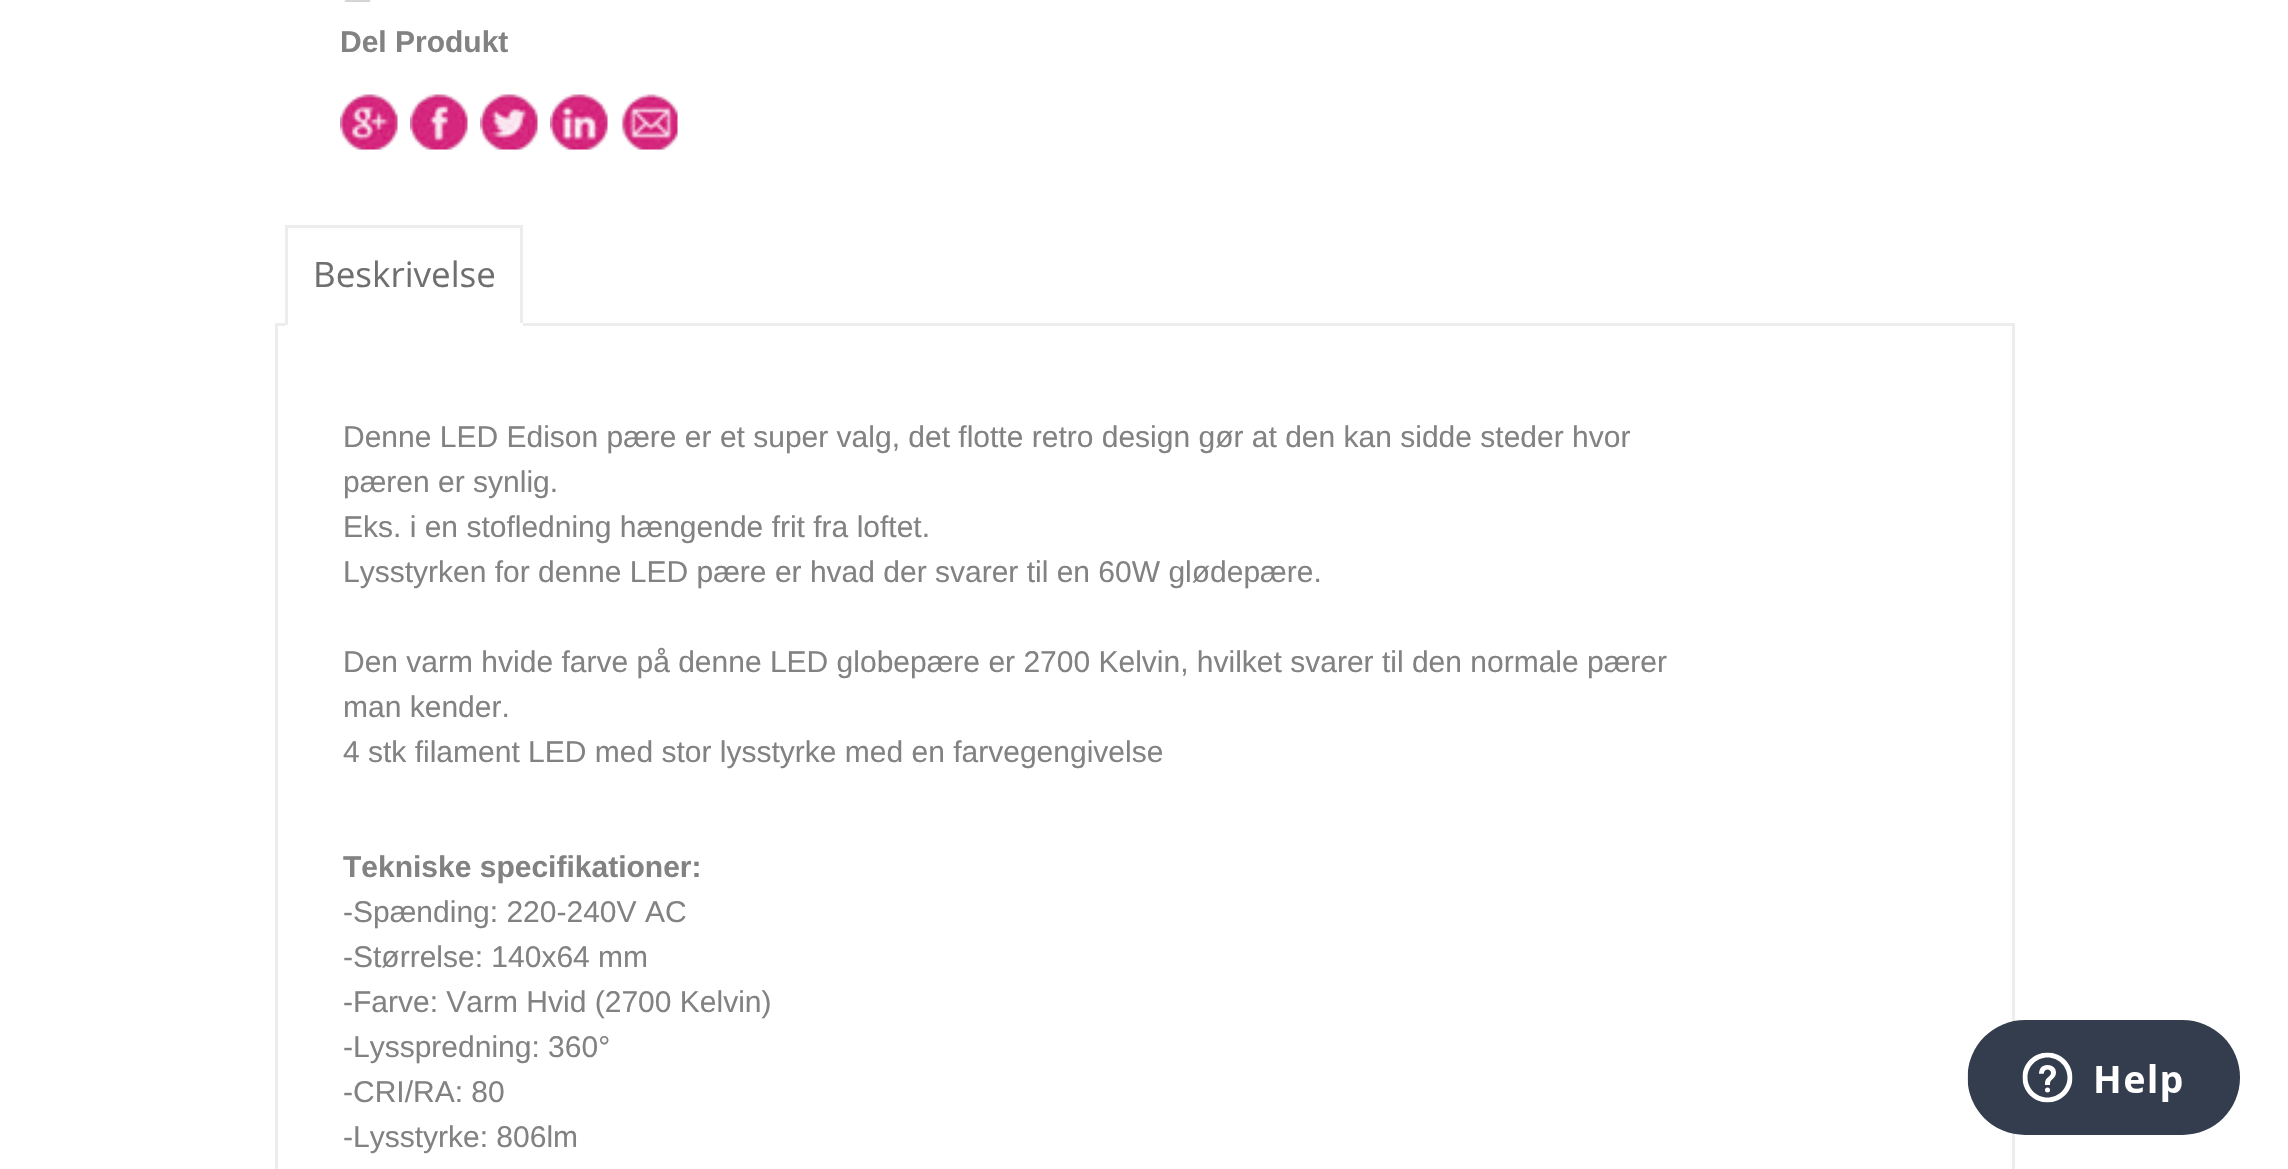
#include "include/core/SkBlurTypes.h"
#include "include/core/SkCanvas.h"
#include "include/core/SkData.h"
#include "include/core/SkFont.h"
#include "include/core/SkFontMgr.h"
#include "include/core/SkImage.h"
#include "include/core/SkMaskFilter.h"
#include "include/core/SkPaint.h"
#include "include/core/SkPathBuilder.h"
#include "include/core/SkTextBlob.h"
#include "include/effects/SkDashPathEffect.h"
#include "include/effects/SkGradientShader.h"
#include "include/utils/SkParsePath.h"

extern sk_sp<SkFontMgr> fontMgr;

void draw(SkCanvas* canvas) {
    SkPaint p;
    p.setAntiAlias(true);
    auto font = [&](const char* family, int weight, float size, bool italic = false) {
        SkFontStyle style(weight, SkFontStyle::kNormal_Width,
            italic ? SkFontStyle::kItalic_Slant : SkFontStyle::kUpright_Slant);
        SkFont result(fontMgr->matchFamilyStyle(family, style), size);
        result.setSubpixel(true);
        return result;
    };
    auto drawPhoto = [&](const char* path, float l, float t, float r, float b) {
        auto image = SkImages::DeferredFromEncodedData(SkData::MakeFromFileName(path));
        canvas->drawImageRect(image, SkRect::MakeLTRB(l, t, r, b), SkSamplingOptions());
    };
    canvas->clear(0xFFFFFFFF);
    drawPhoto("media/1.png", 344, 0, 377, 2);
    auto font1 = font("Liberation Sans", 700, 30);
    p.setColor(0xFF828282);
    canvas->drawString("Del Produkt", 340, 52, font1, p);
    drawPhoto("media/2.png", 340, 94, 398, 150);
    drawPhoto("media/3.png", 410, 94, 468, 150);
    drawPhoto("media/4.png", 480, 94, 538, 150);
    drawPhoto("media/5.png", 550, 94, 608, 150);
    drawPhoto("media/6.png", 620, 94, 678, 150);
    p.setColor(0xFFEDEDED);
    canvas->drawRect(SkRect::MakeLTRB(285, 225, 523, 228), p);
    p.setStyle(SkPaint::kStroke_Style);
    p.setStrokeWidth(3);
    canvas->drawRect(SkRect::MakeLTRB(276.5f, 324.5f, 2013.5f, 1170.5f), p);
    p.setStyle(SkPaint::kFill_Style);
    {
        const struct { float l, t, r, b; SkColor color; } items[] = {
            {520, 225, 523, 325, 0xFFEDEDED},
            {285, 323, 523, 326, 0xFFFFFFFF},
            {285, 225, 288, 325, 0xFFEDEDED},
        };
        for (auto [l, t, r, b, color] : items) {
            p.setColor(color);
            canvas->drawRect(SkRect::MakeLTRB(l, t, r, b), p);
        }
    }
    auto font2 = font("Open Sans", 400, 35);
    p.setColor(0xFF6F6F6F);
    canvas->drawString("Beskrivelse", 313, 287, font2, p);
    auto font3 = font("Liberation Sans", 400, 30);
    p.setColor(0xFF828282);
    {
        const struct { const char* s; float x, y; } items[] = {
            {"Denne LED Edison pære er et super valg, det flotte retro design gør at den kan sidde steder hvor", 343, 447},
            {"pæren er synlig.", 343, 492},
            {"Eks. i en stofledning hængende frit fra loftet.", 343, 537},
            {"Lysstyrken for denne LED pære er hvad der svarer til en 60W glødepære.", 343, 582},
            {"Den varm hvide farve på denne LED globepære er 2700 Kelvin, hvilket svarer til den normale pærer", 343, 672},
            {"man kender.", 343, 717},
            {"4 stk filament LED med stor lysstyrke med en farvegengivelse", 343, 762},
        };
        for (auto [s, x, y] : items) {
            canvas->drawString(s, x, y, font3, p);
        }
    }
    canvas->drawString("Tekniske specifikationer:", 343, 877, font1, p);
    {
        const struct { const char* s; float x, y; } items[] = {
            {"-Spænding: 220-240V AC", 343, 922},
            {"-Størrelse: 140x64 mm", 343, 967},
            {"-Farve: Varm Hvid (2700 Kelvin)", 343, 1012},
            {"-Lysspredning: 360°", 343, 1057},
            {"-CRI/RA: 80", 343, 1102},
            {"-Lysstyrke: 806lm", 343, 1147},
        };
        for (auto [s, x, y] : items) {
            canvas->drawString(s, x, y, font3, p);
        }
    }
    drawPhoto("media/7.png", 1967, 1020, 2240, 1135);
}
